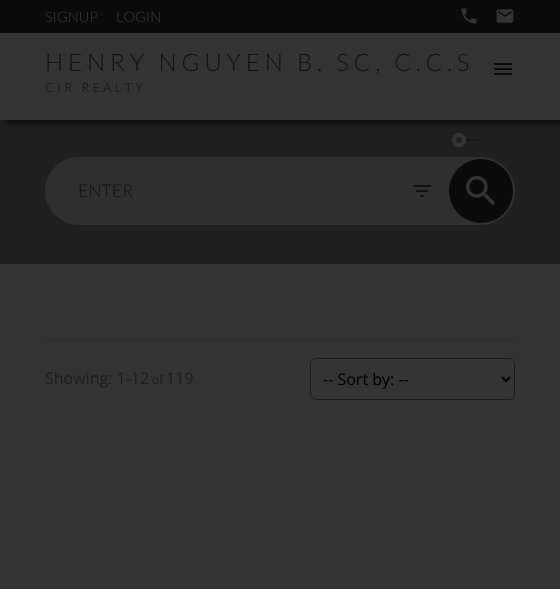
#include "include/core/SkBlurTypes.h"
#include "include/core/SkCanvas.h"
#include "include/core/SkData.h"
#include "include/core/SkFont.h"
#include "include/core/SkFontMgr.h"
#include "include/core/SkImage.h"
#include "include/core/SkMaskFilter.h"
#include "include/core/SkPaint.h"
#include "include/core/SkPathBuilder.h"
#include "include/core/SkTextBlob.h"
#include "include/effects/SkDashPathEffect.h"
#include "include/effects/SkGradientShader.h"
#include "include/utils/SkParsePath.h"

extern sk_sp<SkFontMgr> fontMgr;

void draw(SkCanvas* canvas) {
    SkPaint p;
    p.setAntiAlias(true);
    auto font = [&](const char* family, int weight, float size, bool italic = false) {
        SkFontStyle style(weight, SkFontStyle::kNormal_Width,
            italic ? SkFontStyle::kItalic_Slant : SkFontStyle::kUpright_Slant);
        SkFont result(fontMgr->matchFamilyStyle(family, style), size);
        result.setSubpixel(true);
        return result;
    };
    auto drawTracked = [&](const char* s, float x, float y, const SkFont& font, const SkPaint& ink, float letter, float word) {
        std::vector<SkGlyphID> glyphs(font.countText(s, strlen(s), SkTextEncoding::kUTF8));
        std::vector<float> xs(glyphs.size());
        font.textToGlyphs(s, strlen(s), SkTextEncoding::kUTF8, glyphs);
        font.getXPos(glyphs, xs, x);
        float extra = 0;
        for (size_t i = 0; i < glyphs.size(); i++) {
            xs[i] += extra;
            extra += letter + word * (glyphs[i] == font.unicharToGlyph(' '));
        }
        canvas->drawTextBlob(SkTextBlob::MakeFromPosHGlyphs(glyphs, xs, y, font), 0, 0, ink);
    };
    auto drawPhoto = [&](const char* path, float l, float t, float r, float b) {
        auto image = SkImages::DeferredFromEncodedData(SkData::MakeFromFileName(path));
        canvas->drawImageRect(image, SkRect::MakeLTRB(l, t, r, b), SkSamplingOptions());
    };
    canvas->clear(0xFF333333);
    p.setColor(0xFF1F1F1F);
    canvas->drawRect(SkRect::MakeLTRB(0, 120, 560, 264), p);
    p.setStyle(SkPaint::kStroke_Style);
    p.setStrokeWidth(4);
    p.setColor(0xFF333333);
    canvas->drawCircle(459, 140, 5, p);
    canvas->save();
    canvas->clipRect(SkRect::MakeLTRB(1, 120, 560, 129));
    p.setStyle(SkPaint::kFill_Style);
    p.setColor(0x80000000);
    p.setMaskFilter(SkMaskFilter::MakeBlur(kNormal_SkBlurStyle, 2.5f));
    canvas->drawRect(SkRect::MakeLTRB(5, 5, 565, 125), p);
    p.setMaskFilter(nullptr);
    canvas->restore();
    p.setColor(0xFF0A0A0A);
    canvas->drawRect(SkRect::MakeLTRB(0, 0, 560, 33), p);
    auto font1 = font("Lato", 300, 14.5f);
    p.setColor(0xFF333333);
    canvas->drawString("SIGNUP", 45, 22, font1, p);
    canvas->drawString("LOGIN", 116, 22, font1, p);
    drawPhoto("media/1.png", 461, 8, 477, 24);
    drawPhoto("media/2.png", 496, 9, 514, 23);
    auto font2 = font("Lato", 300, 24);
    p.setColor(0xFF131313);
    drawTracked("HENRY NGUYEN B. SC, C.C.S", 45, 71, font2, p, 4.8f, 0);
    auto font3 = font("Lato", 300, 12.75f);
    drawTracked("CIR REALTY", 45, 92, font3, p, 3.25f, 0);
    drawPhoto("media/3.png", 494, 63, 512, 75);
    p.setColor(0xFF181818);
    canvas->drawPath(SkPathBuilder().moveTo(466, 139).lineTo(479, 139).cubicTo(479.5f, 139, 480, 139.5f, 480, 140).cubicTo(480, 140.5f, 479.5f, 141, 479, 141).lineTo(466, 141).close().detach(), p);
    p.setColor(0xFF2F2F2F);
    canvas->drawRoundRect(SkRect::MakeLTRB(45, 157, 515, 225), 34, 34, p);
    auto font4 = font("Lato", 300, 17.5f);
    p.setColor(0xFF131313);
    canvas->drawString("ENTER", 78, 197, font4, p);
    drawPhoto("media/4.png", 413, 185, 431, 197);
    p.setColor(0xFF0A0A0A);
    canvas->drawCircle(481, 191, 32, p);
    drawPhoto("media/5.png", 466, 176, 496, 206);
    p.setColor(0xFF2C2C2C);
    canvas->drawRect(SkRect::MakeLTRB(45, 340, 515, 341), p);
    auto font5 = font("Open Sans", 400, 16);
    p.setColor(0xFF1D1D1D);
    canvas->drawString("Showing: 1-12", 45, 384, font5, p);
    auto font6 = font("Open Sans", 400, 12);
    canvas->drawString("of", 152, 384, font6, p);
    canvas->drawString("119", 166, 384, font5, p);
    p.setStyle(SkPaint::kStroke_Style);
    p.setStrokeWidth(1);
    p.setColor(0xFF1B1B1B);
    canvas->drawRoundRect(SkRect::MakeLTRB(310.5f, 358.5f, 514.5f, 399.5f), 5.5f, 5.5f, p);
    p.setStrokeWidth(2);
    p.setColor(0xFF000000);
    canvas->drawPath(SkPathBuilder().moveTo(502, 377).lineTo(506, 381).lineTo(510, 377).detach(), p);
    p.setStyle(SkPaint::kFill_Style);
    canvas->drawString("-- Sort by: --", 323, 385, font5, p);
}
